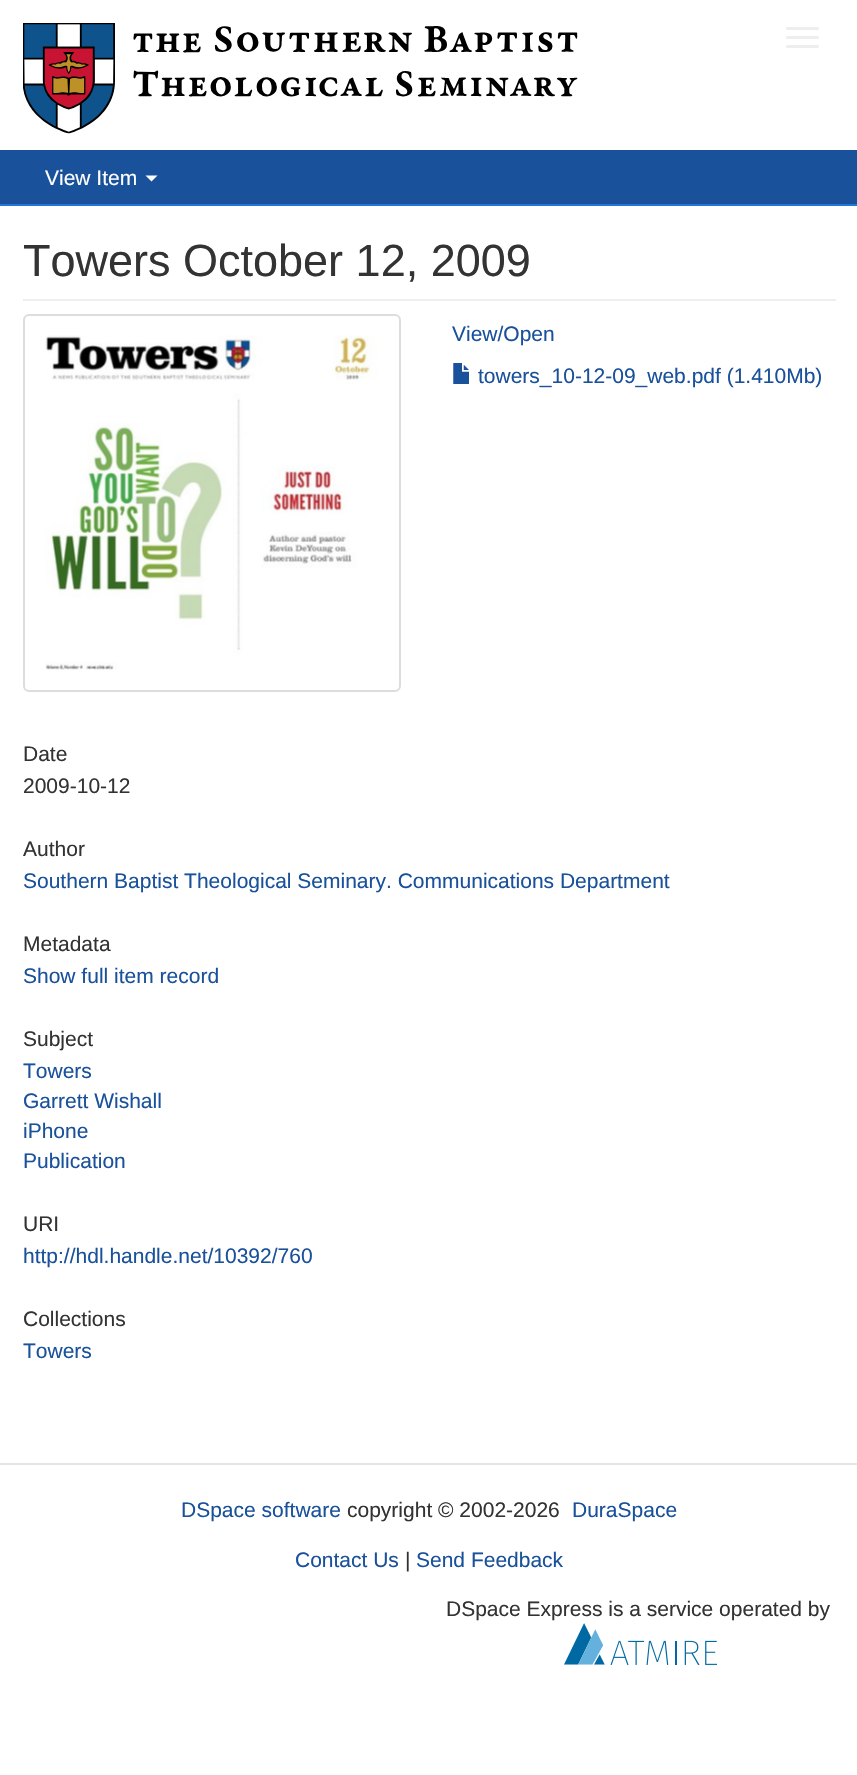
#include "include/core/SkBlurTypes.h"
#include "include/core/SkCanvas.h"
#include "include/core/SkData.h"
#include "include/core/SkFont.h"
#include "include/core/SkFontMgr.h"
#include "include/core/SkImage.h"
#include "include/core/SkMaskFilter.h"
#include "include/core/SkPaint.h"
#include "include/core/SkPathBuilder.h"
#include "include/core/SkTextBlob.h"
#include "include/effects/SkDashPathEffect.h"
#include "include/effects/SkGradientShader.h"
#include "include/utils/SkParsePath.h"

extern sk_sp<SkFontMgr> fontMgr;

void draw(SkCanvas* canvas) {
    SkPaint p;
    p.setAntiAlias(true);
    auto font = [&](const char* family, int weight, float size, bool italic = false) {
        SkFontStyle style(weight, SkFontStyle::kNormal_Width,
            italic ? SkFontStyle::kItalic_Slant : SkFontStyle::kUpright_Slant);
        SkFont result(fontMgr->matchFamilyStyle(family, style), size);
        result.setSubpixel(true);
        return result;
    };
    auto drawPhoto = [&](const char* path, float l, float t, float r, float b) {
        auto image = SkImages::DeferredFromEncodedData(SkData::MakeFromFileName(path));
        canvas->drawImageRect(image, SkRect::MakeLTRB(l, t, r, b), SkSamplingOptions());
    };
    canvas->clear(0xFFFFFFFF);
    drawPhoto("media/1.png", 23, 23, 578, 134);
    p.setColor(0xFFEEEEEE);
    canvas->drawRoundRect(SkRect::MakeLTRB(786, 27, 819, 30), 1.5f, 1.5f, p);
    canvas->drawRoundRect(SkRect::MakeLTRB(786, 36, 819, 39), 1.5f, 1.5f, p);
    canvas->drawRoundRect(SkRect::MakeLTRB(786, 45, 819, 48), 1.5f, 1.5f, p);
    p.setColor(0xFF19519B);
    canvas->drawRect(SkRect::MakeLTRB(0, 150, 857, 204), p);
    p.setColor(0xFF2574DC);
    canvas->drawRect(SkRect::MakeLTRB(0, 204, 857, 206), p);
    auto font1 = font("Liberation Sans", 400, 21);
    p.setColor(0xFFFFFFFF);
    canvas->drawString("View Item", 45, 185, font1, p);
    canvas->drawPath(SkPathBuilder().moveTo(145.5f, 175.5f).lineTo(157.5f, 175.5f).lineTo(151.5f, 181.5f).close().detach(), p);
    p.setColor(0xFFEEEEEE);
    canvas->drawRect(SkRect::MakeLTRB(23, 299, 836, 301), p);
    auto font2 = font("Liberation Sans", 400, 45);
    p.setColor(0xFF333333);
    canvas->drawString("Towers October 12, 2009", 23, 276, font2, p);
    p.setStyle(SkPaint::kStroke_Style);
    p.setStrokeWidth(2);
    p.setColor(0xFFDDDDDD);
    canvas->drawRoundRect(SkRect::MakeLTRB(24, 315, 400, 691), 5, 5, p);
    drawPhoto("media/2.png", 45, 335, 378, 670);
    p.setStyle(SkPaint::kFill_Style);
    p.setColor(0xFF19519B);
    canvas->drawString("View/Open", 452, 341, font1, p);
    drawPhoto("media/3.png", 453, 363, 469, 384);
    canvas->drawString("towers_10-12-09_web.pdf (1.410Mb)", 478, 383, font1, p);
    p.setColor(0xFF333333);
    {
        const struct { const char* s; float x, y; } items[] = {
            {"Date", 23, 761},
            {"2009-10-12", 23, 793},
            {"Author", 23, 856},
        };
        for (auto [s, x, y] : items) {
            canvas->drawString(s, x, y, font1, p);
        }
    }
    p.setColor(0xFF19519B);
    canvas->drawString("Southern Baptist Theological Seminary. Communications Department", 23, 888, font1, p);
    p.setColor(0xFF333333);
    canvas->drawString("Metadata", 23, 951, font1, p);
    p.setColor(0xFF19519B);
    canvas->drawString("Show full item record", 23, 983, font1, p);
    p.setColor(0xFF333333);
    canvas->drawString("Subject", 23, 1046, font1, p);
    p.setColor(0xFF19519B);
    {
        const struct { const char* s; float x, y; } items[] = {
            {"Towers", 23, 1078},
            {"Garrett Wishall", 23, 1108},
            {"iPhone", 23, 1138},
            {"Publication", 23, 1168},
        };
        for (auto [s, x, y] : items) {
            canvas->drawString(s, x, y, font1, p);
        }
    }
    p.setColor(0xFF333333);
    canvas->drawString("URI", 23, 1231, font1, p);
    p.setColor(0xFF19519B);
    canvas->drawString("http://hdl.handle.net/10392/760", 23, 1263, font1, p);
    p.setColor(0xFF333333);
    canvas->drawString("Collections", 23, 1326, font1, p);
    p.setColor(0xFF19519B);
    canvas->drawString("Towers", 23, 1358, font1, p);
    p.setColor(0xFFE5E5E5);
    canvas->drawRect(SkRect::MakeLTRB(0, 1463, 857, 1465), p);
    p.setColor(0xFF19519B);
    canvas->drawString("DSpace software", 181, 1517, font1, p);
    p.setColor(0xFF333333);
    canvas->drawString("copyright © 2002-2026", 347, 1517, font1, p);
    p.setColor(0xFF19519B);
    canvas->drawString("DuraSpace", 572, 1517, font1, p);
    canvas->drawString("Contact Us", 295, 1567, font1, p);
    p.setColor(0xFF333333);
    canvas->drawString("|", 405, 1567, font1, p);
    p.setColor(0xFF19519B);
    canvas->drawString("Send Feedback", 416, 1567, font1, p);
    p.setColor(0xFF333333);
    canvas->drawString("DSpace Express is a service operated by", 446, 1616, font1, p);
    drawPhoto("media/4.png", 564, 1623, 717, 1665);
}
